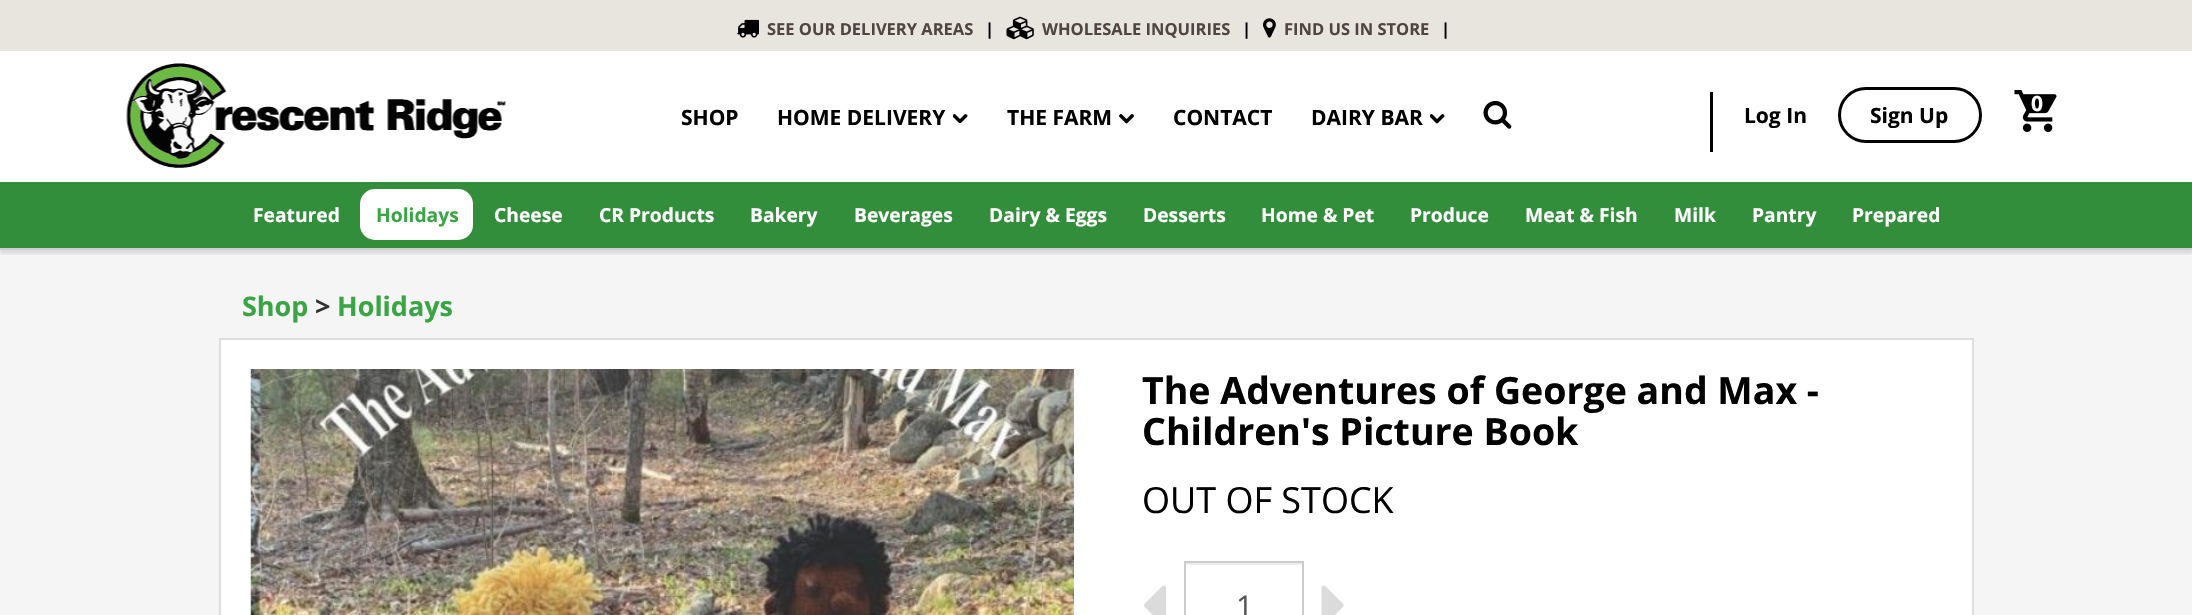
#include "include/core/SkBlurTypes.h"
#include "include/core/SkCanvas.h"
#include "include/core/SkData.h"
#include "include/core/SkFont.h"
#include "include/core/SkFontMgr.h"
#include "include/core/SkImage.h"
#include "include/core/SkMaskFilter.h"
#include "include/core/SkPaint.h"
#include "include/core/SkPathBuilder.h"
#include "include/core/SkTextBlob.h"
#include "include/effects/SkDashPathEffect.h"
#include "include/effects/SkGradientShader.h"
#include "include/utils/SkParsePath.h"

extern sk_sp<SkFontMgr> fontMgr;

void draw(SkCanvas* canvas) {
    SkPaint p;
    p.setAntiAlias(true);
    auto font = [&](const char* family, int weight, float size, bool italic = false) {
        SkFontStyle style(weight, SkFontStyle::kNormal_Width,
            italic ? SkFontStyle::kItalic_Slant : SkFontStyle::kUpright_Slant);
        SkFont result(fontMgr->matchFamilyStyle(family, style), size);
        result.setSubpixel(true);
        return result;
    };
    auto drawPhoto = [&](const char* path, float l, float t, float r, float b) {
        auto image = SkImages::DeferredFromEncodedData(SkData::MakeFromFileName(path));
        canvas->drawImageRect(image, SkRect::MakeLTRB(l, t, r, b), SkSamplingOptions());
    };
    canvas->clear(0xFFFFFFFF);
    p.setColor(0xFFF5F5F5);
    canvas->drawRect(SkRect::MakeLTRB(0, 250, 2192, 615), p);
    canvas->save();
    canvas->clipRect(SkRect::MakeLTRB(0, 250, 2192, 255));
    p.setColor(0x1A000000);
    p.setMaskFilter(SkMaskFilter::MakeBlur(kNormal_SkBlurStyle, 1.5f));
    canvas->drawRect(SkRect::MakeLTRB(0, 5, 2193, 254), p);
    p.setMaskFilter(nullptr);
    canvas->restore();
    p.setColor(0xFFCFCFCF);
    canvas->drawRect(SkRect::MakeLTRB(0, 248, 2192, 250), p);
    p.setColor(0xFFE8E5DF);
    canvas->drawRect(SkRect::MakeLTRB(0, 0, 2192, 51), p);
    drawPhoto("media/1.png", 737, 19, 759, 38);
    auto font1 = font("Open Sans", 700, 16.5f);
    p.setColor(0xFF504541);
    canvas->drawString("SEE OUR DELIVERY AREAS", 767, 35, font1, p);
    p.setColor(0xFF000000);
    canvas->drawString("|", 985, 35, font1, p);
    drawPhoto("media/2.png", 1006, 16, 1034, 40);
    p.setColor(0xFF504541);
    canvas->drawString("WHOLESALE INQUIRIES", 1042, 35, font1, p);
    p.setColor(0xFF000000);
    canvas->drawString("|", 1242, 35, font1, p);
    drawPhoto("media/3.png", 1263, 18, 1276, 38);
    p.setColor(0xFF504541);
    canvas->drawString("FIND US IN STORE", 1284, 35, font1, p);
    p.setColor(0xFF000000);
    canvas->drawString("|", 1441, 35, font1, p);
    drawPhoto("media/4.png", 126, 63, 506, 168);
    auto font2 = font("Open Sans", 700, 21);
    canvas->drawString("SHOP", 681, 125, font2, p);
    canvas->drawString("HOME DELIVERY", 777, 125, font2, p);
    drawPhoto("media/5.png", 953, 114, 968, 123);
    canvas->drawString("THE FARM", 1007, 125, font2, p);
    drawPhoto("media/6.png", 1119, 114, 1134, 124);
    canvas->drawString("CONTACT", 1173, 125, font2, p);
    canvas->drawString("DAIRY BAR", 1311, 125, font2, p);
    drawPhoto("media/7.png", 1430, 114, 1445, 124);
    drawPhoto("media/8.png", 1483, 100, 1512, 129);
    canvas->drawRect(SkRect::MakeLTRB(1710, 92, 1713, 152), p);
    drawPhoto("media/9.png", 2014, 90, 2057, 132);
    p.setColor(0xFFFFFFFF);
    canvas->drawString("0", 2031, 111, font2, p);
    p.setColor(0xFF000000);
    canvas->drawString("Log In", 1744, 123, font2, p);
    p.setStyle(SkPaint::kStroke_Style);
    p.setStrokeWidth(3);
    canvas->drawRoundRect(SkRect::MakeLTRB(1839.5f, 88.5f, 1980.5f, 141.5f), 26.5f, 26.5f, p);
    p.setStyle(SkPaint::kFill_Style);
    canvas->drawString("Sign Up", 1870, 123, font2, p);
    p.setColor(0xFF328E3B);
    canvas->drawRect(SkRect::MakeLTRB(0, 182, 2192, 248), p);
    auto font3 = font("Open Sans", 700, 19.25f);
    p.setColor(0xFFFFFFFF);
    canvas->drawString("Featured", 253, 222, font3, p);
    canvas->drawRoundRect(SkRect::MakeLTRB(360, 189, 473, 240), 15, 15, p);
    p.setColor(0xFF3AA545);
    canvas->drawString("Holidays", 376, 222, font3, p);
    p.setColor(0xFFFFFFFF);
    {
        const struct { const char* s; float x, y; } items[] = {
            {"Cheese", 494, 222},
            {"CR Products", 599, 222},
            {"Bakery", 750, 222},
            {"Beverages", 854, 222},
            {"Dairy & Eggs", 989, 222},
            {"Desserts", 1143, 222},
            {"Home & Pet", 1261, 222},
            {"Produce", 1410, 222},
            {"Meat & Fish", 1525, 222},
            {"Milk", 1674, 222},
            {"Pantry", 1752, 222},
            {"Prepared", 1852, 222},
        };
        for (auto [s, x, y] : items) {
            canvas->drawString(s, x, y, font3, p);
        }
    }
    auto font4 = font("Open Sans", 700, 27);
    p.setColor(0xFF3AA545);
    canvas->drawString("Shop", 242, 316, font4, p);
    p.setColor(0xFF333333);
    canvas->drawString(">", 315, 316, font4, p);
    p.setColor(0xFF3AA545);
    canvas->drawString("Holidays", 337, 316, font4, p);
    p.setColor(0xFFFFFFFF);
    canvas->drawRect(SkRect::MakeLTRB(220, 339, 1973, 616), p);
    p.setStyle(SkPaint::kStroke_Style);
    p.setStrokeWidth(2);
    p.setColor(0xFFDDDCDF);
    canvas->drawRect(SkRect::MakeLTRB(220, 339, 1973, 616), p);
    drawPhoto("media/10.png", 250, 369, 1074, 615);
    auto font5 = font("Open Sans", 700, 37.5f);
    p.setStyle(SkPaint::kFill_Style);
    p.setColor(0xFF000000);
    canvas->drawString("The Adventures of George and Max -", 1142, 404, font5, p);
    canvas->drawString("Children's Picture Book", 1142, 445, font5, p);
    auto font6 = font("Open Sans", 400, 36);
    canvas->drawString("OUT OF STOCK", 1142, 513, font6, p);
    drawPhoto("media/11.png", 1144, 585, 1167, 615);
    p.setColor(0xFFECECEC);
    canvas->drawRect(SkRect::MakeLTRB(1185, 563, 1302, 565), p);
    p.setStyle(SkPaint::kStroke_Style);
    p.setColor(0xFFCCCCCC);
    canvas->drawRect(SkRect::MakeLTRB(1185, 562, 1303, 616), p);
    auto font7 = font("Open Sans", 400, 30);
    p.setStyle(SkPaint::kFill_Style);
    p.setColor(0xFF555555);
    canvas->drawString("1", 1236, 617, font7, p);
    drawPhoto("media/12.png", 1321, 585, 1344, 615);
}
